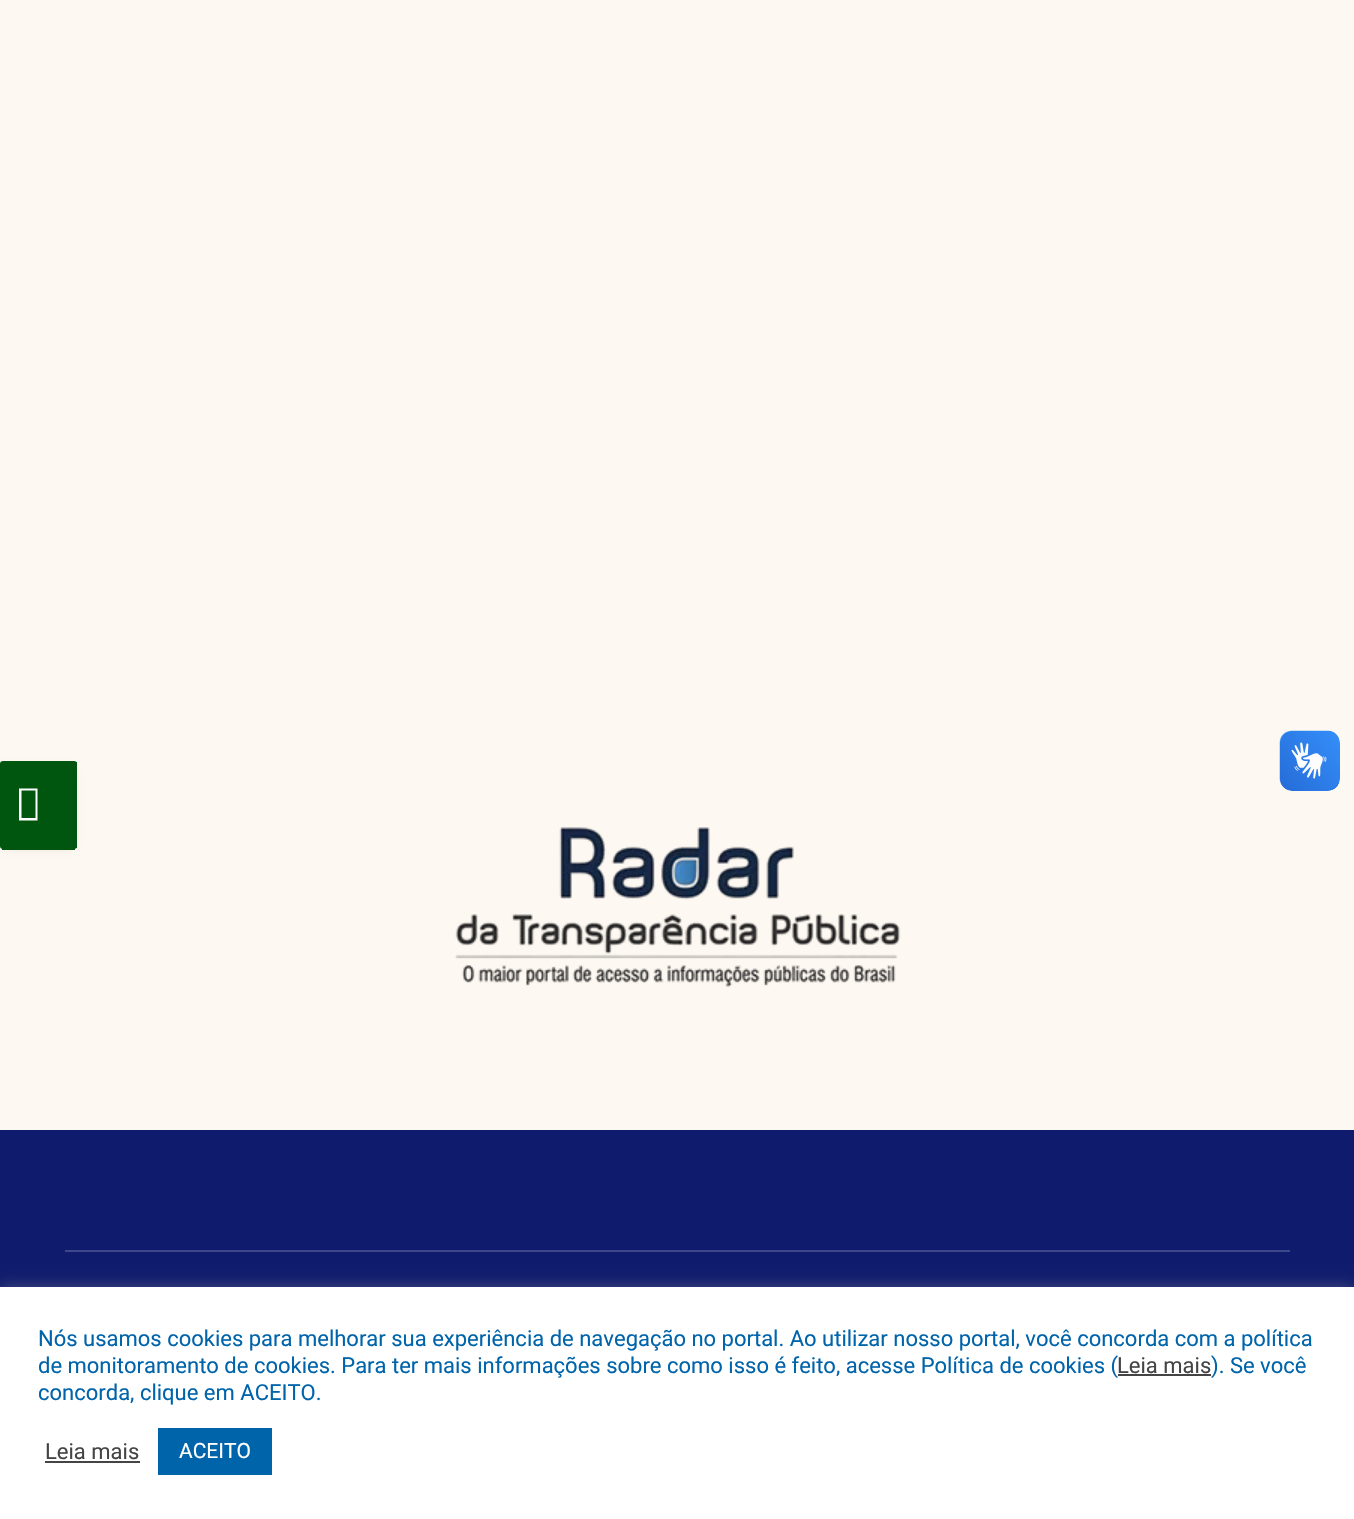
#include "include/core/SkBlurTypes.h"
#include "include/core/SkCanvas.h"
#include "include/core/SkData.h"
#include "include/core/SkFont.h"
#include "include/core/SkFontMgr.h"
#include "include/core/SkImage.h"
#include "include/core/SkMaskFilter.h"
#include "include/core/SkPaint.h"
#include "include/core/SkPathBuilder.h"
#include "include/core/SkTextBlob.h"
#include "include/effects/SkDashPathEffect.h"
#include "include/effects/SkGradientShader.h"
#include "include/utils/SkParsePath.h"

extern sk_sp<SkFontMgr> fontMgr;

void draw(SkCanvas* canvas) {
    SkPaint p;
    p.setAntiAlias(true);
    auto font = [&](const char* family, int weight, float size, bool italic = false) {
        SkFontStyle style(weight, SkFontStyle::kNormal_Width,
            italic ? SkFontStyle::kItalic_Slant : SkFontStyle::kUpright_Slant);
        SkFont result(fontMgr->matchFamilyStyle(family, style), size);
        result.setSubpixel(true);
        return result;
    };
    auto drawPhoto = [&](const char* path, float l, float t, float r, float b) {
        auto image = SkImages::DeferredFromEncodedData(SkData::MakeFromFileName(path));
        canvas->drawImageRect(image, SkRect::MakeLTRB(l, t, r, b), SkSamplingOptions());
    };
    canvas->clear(0xFFFDF8F1);
    p.setColor(0x29000000);
    p.setMaskFilter(SkMaskFilter::MakeBlur(kNormal_SkBlurStyle, 5));
    canvas->drawRect(SkRect::MakeLTRB(6, 770, 71, 846), p);
    p.setMaskFilter(nullptr);
    p.setColor(0xFF00560F);
    canvas->drawRoundRect(SkRect::MakeLTRB(0, 761, 77, 849), 3, 3, p);
    canvas->drawRect(SkRect::MakeLTRB(76, 762, 77, 848), p);
    canvas->drawRect(SkRect::MakeLTRB(2, 848, 75, 850), p);
    p.setColor(0xFFFFFFFF);
    canvas->drawPath(SkPathBuilder().moveTo(19, 820.5f).lineTo(19, 788.5f).lineTo(37.5f, 788.5f).lineTo(37.5f, 820.5f).close().moveTo(21.5f, 818).lineTo(35.5f, 818).lineTo(35.5f, 790.5f).lineTo(21.5f, 790.5f).close().detach(), p);
    drawPhoto("media/1.png", 1279, 730, 1340, 791);
    drawPhoto("media/2.png", 1280, 731, 1340, 791);
    drawPhoto("media/3.png", 455, 827, 901, 987);
    p.setColor(0xFF0F1B6C);
    canvas->drawRect(SkRect::MakeLTRB(0, 1130, 1354, 1287), p);
    p.setColor(0xFF3D4688);
    canvas->drawRect(SkRect::MakeLTRB(65, 1250, 1290, 1252), p);
    p.setColor(0x4DACABAB);
    p.setMaskFilter(SkMaskFilter::MakeBlur(kNormal_SkBlurStyle, 7.5f));
    canvas->drawRect(SkRect::MakeLTRB(0, 1286, 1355, 1518), p);
    p.setMaskFilter(nullptr);
    p.setColor(0xFFFFFFFF);
    canvas->drawRect(SkRect::MakeLTRB(0, 1287, 1354, 1519), p);
    auto font1 = font("Roboto", 400, 22);
    p.setColor(0xFF0064AB);
    canvas->drawString("Nós usamos cookies para melhorar sua experiência de navegação no portal. Ao utilizar nosso portal, você concorda com a política", 38, 1346, font1, p);
    canvas->drawString("de monitoramento de cookies. Para ter mais informações sobre como isso é feito, acesse Política de cookies (", 38, 1373, font1, p);
    p.setColor(0xFF444444);
    canvas->drawString("Leia mais", 1117, 1373, font1, p);
    canvas->drawRect(SkRect::MakeLTRB(1118, 1374, 1211, 1376), p);
    p.setColor(0xFF0064AB);
    canvas->drawString("). Se você", 1211, 1373, font1, p);
    canvas->drawString("concorda, clique em ACEITO.", 38, 1400, font1, p);
    p.setColor(0xFF444444);
    canvas->drawString("Leia mais", 45, 1459, font1, p);
    canvas->drawRect(SkRect::MakeLTRB(45, 1461, 140, 1463), p);
    p.setColor(0xFF0064AB);
    canvas->drawRect(SkRect::MakeLTRB(158, 1428, 272, 1475), p);
    auto font2 = font("Roboto", 400, 21);
    p.setColor(0xFFFFFFFF);
    canvas->drawString("ACEITO", 179, 1458, font2, p);
}
